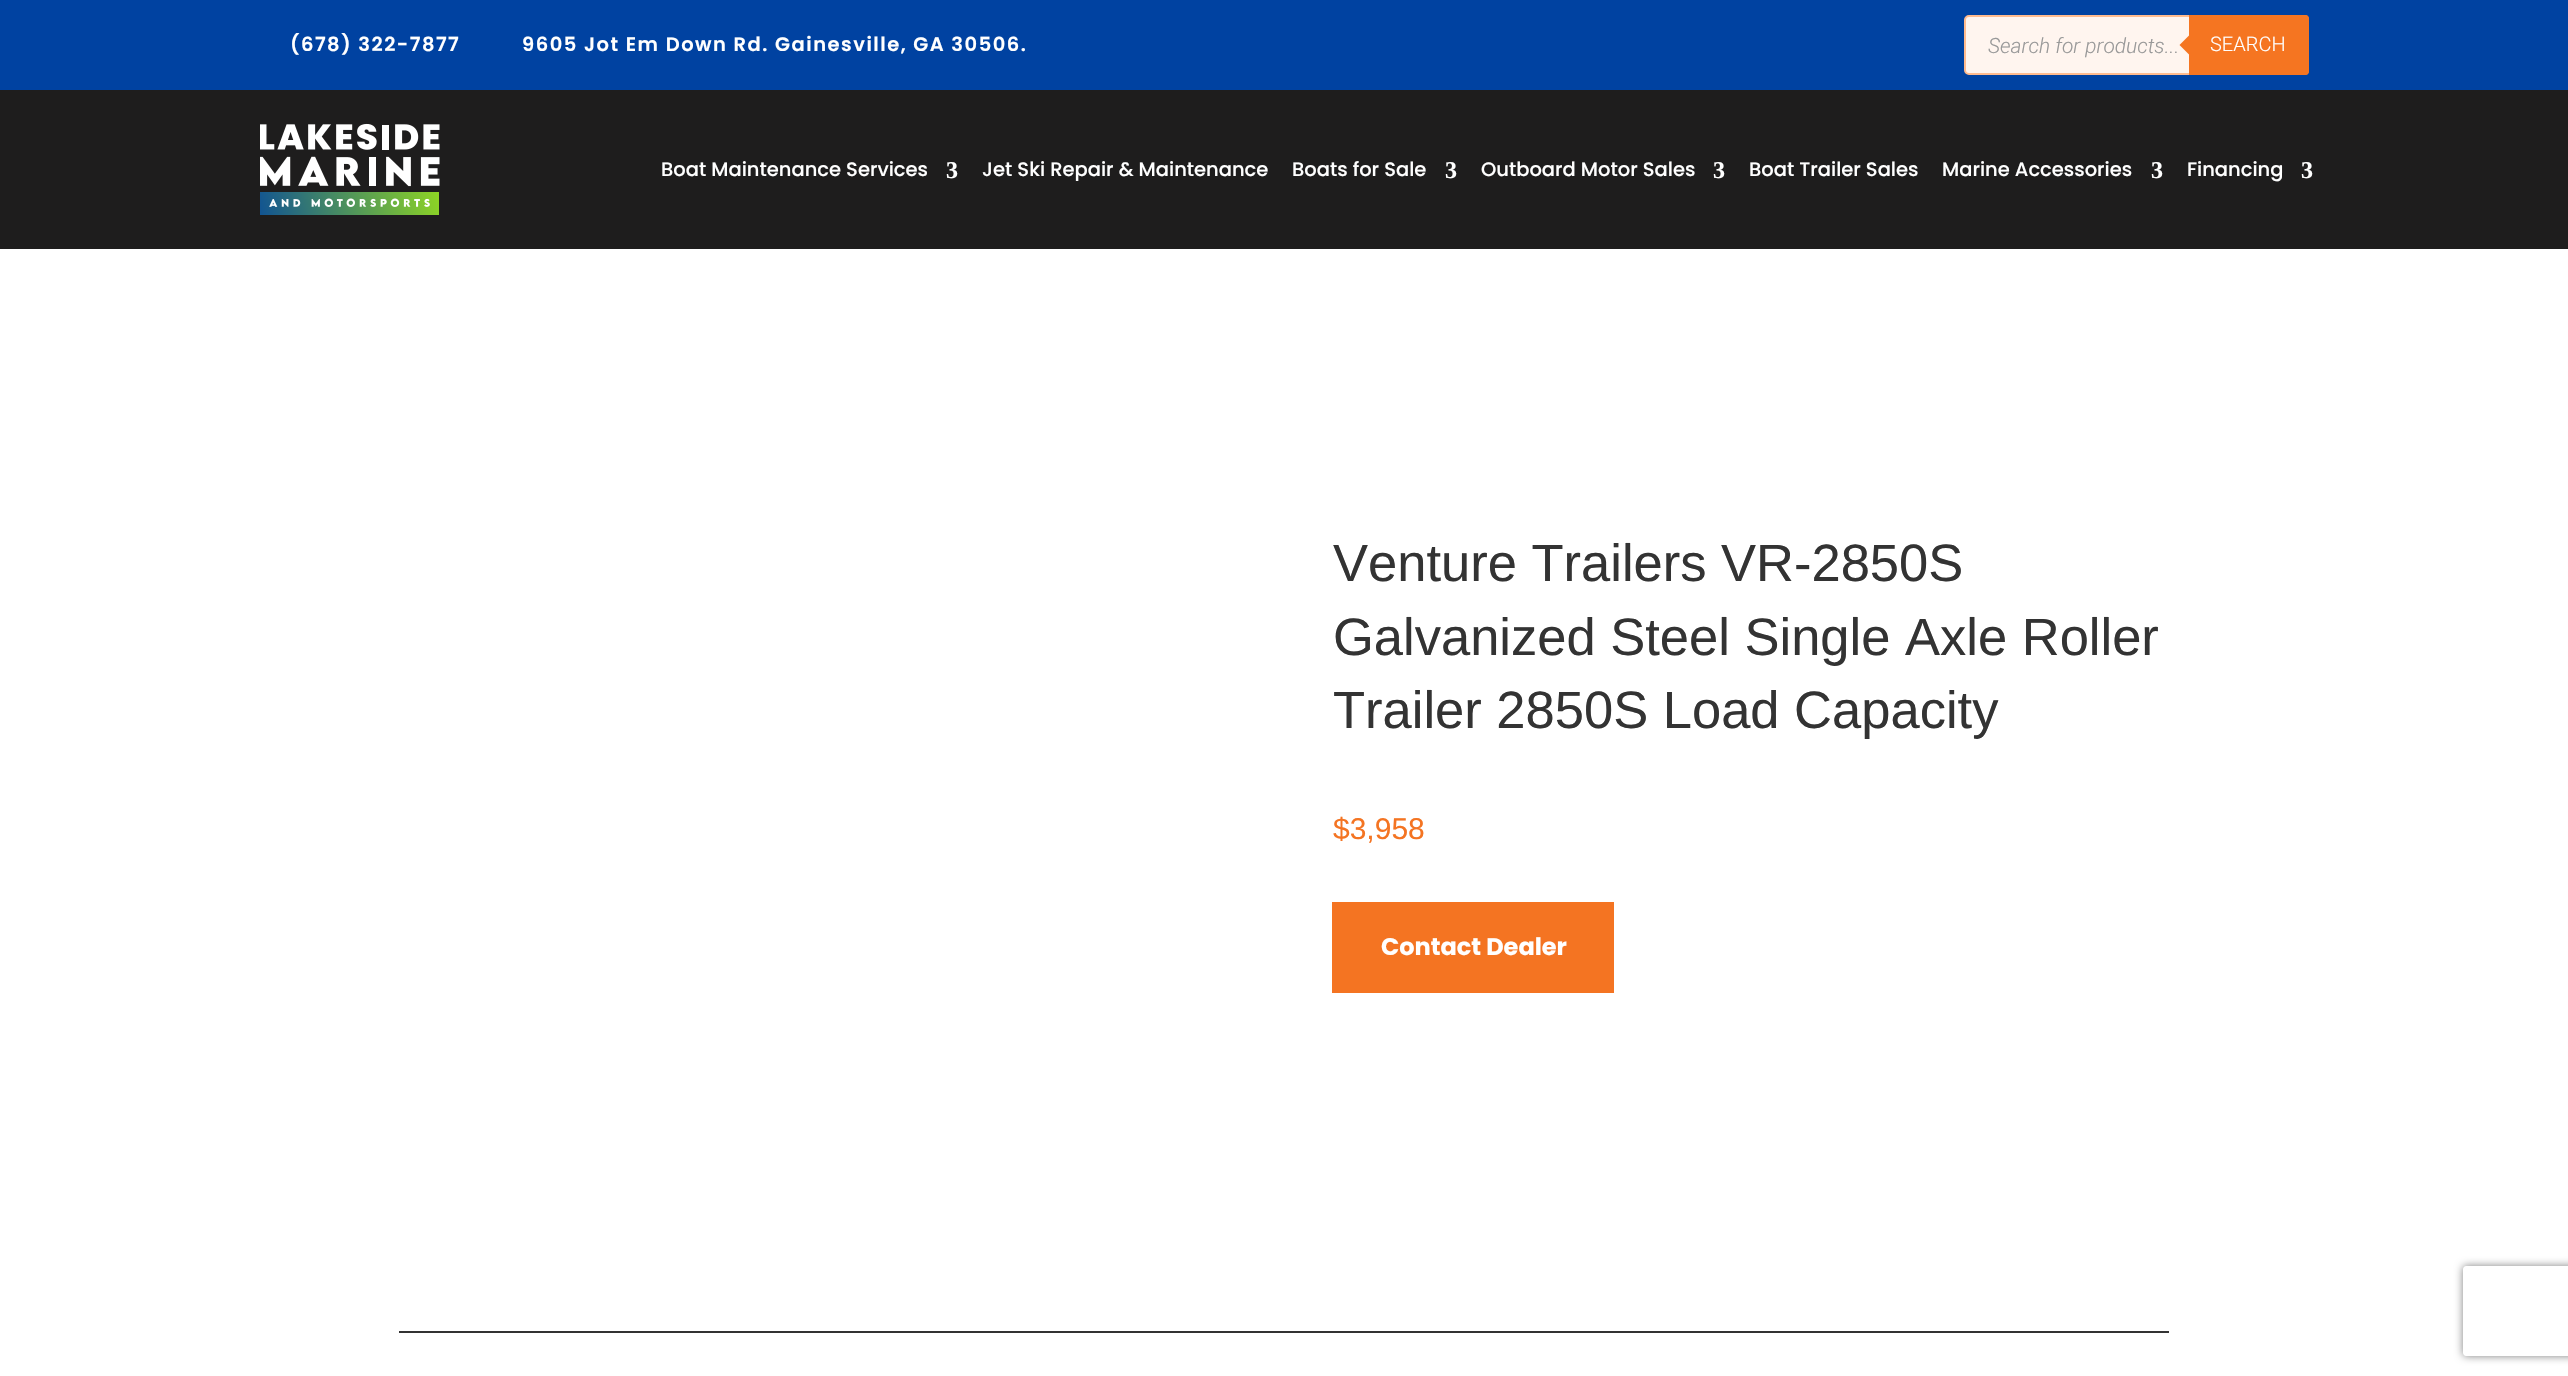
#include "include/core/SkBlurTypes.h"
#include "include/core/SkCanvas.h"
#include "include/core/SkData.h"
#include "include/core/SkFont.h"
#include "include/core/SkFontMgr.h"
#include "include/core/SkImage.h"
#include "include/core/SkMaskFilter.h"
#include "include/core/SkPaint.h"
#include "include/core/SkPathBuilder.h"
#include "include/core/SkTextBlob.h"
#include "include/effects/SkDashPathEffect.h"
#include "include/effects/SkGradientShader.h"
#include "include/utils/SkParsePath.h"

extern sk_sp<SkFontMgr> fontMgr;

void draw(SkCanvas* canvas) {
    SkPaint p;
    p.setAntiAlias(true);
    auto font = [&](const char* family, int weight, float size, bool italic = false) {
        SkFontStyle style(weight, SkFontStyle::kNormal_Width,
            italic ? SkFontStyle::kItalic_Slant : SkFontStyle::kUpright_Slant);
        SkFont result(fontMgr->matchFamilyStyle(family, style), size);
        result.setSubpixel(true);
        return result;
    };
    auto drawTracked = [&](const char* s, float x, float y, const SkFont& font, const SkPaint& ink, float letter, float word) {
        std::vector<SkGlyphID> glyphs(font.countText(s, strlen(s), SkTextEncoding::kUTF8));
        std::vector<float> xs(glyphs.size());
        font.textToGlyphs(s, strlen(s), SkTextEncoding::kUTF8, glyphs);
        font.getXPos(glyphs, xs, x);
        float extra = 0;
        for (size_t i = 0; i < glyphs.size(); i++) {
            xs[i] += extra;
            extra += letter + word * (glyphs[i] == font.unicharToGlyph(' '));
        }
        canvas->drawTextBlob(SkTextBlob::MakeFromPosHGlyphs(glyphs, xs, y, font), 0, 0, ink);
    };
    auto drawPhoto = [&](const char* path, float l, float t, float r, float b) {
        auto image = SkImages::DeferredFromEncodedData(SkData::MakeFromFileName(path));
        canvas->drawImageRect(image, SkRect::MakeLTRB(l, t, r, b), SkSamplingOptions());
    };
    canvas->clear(0xFFFFFFFF);
    p.setColor(0xFF0042A1);
    canvas->drawRect(SkRect::MakeLTRB(0, 0, 2568, 90), p);
    auto font1 = font("Poppins", 600, 19.5f);
    p.setColor(0xFFFFFFFF);
    drawTracked("(678) 322-7877", 290, 51, font1, p, 1.5f, 0);
    drawTracked("9605 Jot Em Down Rd. Gainesville, GA 30506.", 522, 51, font1, p, 1.5f, 0);
    p.setColor(0xFFFFF5EF);
    canvas->drawRoundRect(SkRect::MakeLTRB(1965, 16, 2308, 74), 4, 4, p);
    p.setStyle(SkPaint::kStroke_Style);
    p.setStrokeWidth(2);
    p.setColor(0xFFFFBB8F);
    canvas->drawRoundRect(SkRect::MakeLTRB(1965, 16, 2308, 74), 4, 4, p);
    auto font2 = font("Roboto", 300, 21, true);
    p.setStyle(SkPaint::kFill_Style);
    p.setColor(0xFF999999);
    canvas->drawString("Search for products...", 1988, 53, font2, p);
    p.setColor(0xFFF57521);
    canvas->drawPath(SkPathBuilder().moveTo(2189, 15).lineTo(2306, 15).cubicTo(2307.5f, 15, 2309, 16.5f, 2309, 18).lineTo(2309, 72).cubicTo(2309, 73.5f, 2307.5f, 75, 2306, 75).lineTo(2189, 75).close().detach(), p);
    canvas->drawPath(SkPathBuilder().moveTo(2191.5f, 33).lineTo(2191.5f, 57).lineTo(2179.5f, 45).close().detach(), p);
    auto font3 = font("Roboto", 300, 20);
    p.setColor(0xFFFFFFFF);
    canvas->drawString("SEARCH", 2210, 51, font3, p);
    p.setColor(0xFF1E1D1D);
    canvas->drawRect(SkRect::MakeLTRB(0, 90, 2568, 249), p);
    drawPhoto("media/1.png", 260, 123, 440, 215);
    auto font4 = font("Poppins", 500, 19.5f);
    p.setColor(0xFFFFFFFF);
    canvas->drawString("Boat Maintenance Services", 661, 176, font4, p);
    auto font5 = font("Liberation Serif", 700, 24);
    canvas->drawString("3", 946, 178, font5, p);
    canvas->drawString("Jet Ski Repair & Maintenance", 982, 176, font4, p);
    canvas->drawString("Boats for Sale", 1292, 176, font4, p);
    canvas->drawString("3", 1445, 178, font5, p);
    canvas->drawString("Outboard Motor Sales", 1481, 176, font4, p);
    canvas->drawString("3", 1713, 178, font5, p);
    canvas->drawString("Boat Trailer Sales", 1749, 176, font4, p);
    canvas->drawString("Marine Accessories", 1942, 176, font4, p);
    canvas->drawString("3", 2151, 178, font5, p);
    canvas->drawString("Financing", 2187, 176, font4, p);
    canvas->drawString("3", 2301, 178, font5, p);
    auto font6 = font("Liberation Sans", 400, 52.5f);
    p.setColor(0xFF333333);
    {
        const struct { const char* s; float x, y; } items[] = {
            {"Venture Trailers VR-2850S", 1333, 581},
            {"Galvanized Steel Single Axle Roller", 1333, 655},
            {"Trailer 2850S Load Capacity", 1333, 728},
        };
        for (auto [s, x, y] : items) {
            canvas->drawString(s, x, y, font6, p);
        }
    }
    auto font7 = font("Liberation Sans", 400, 30);
    p.setColor(0xFFF47422);
    canvas->drawString("$3,958", 1333, 839, font7, p);
    canvas->drawRect(SkRect::MakeLTRB(1332, 902, 1614, 993), p);
    auto font8 = font("Poppins", 700, 24);
    p.setColor(0xFFFFFFFF);
    canvas->drawString("Contact Dealer", 1381, 955, font8, p);
    p.setColor(0xFF333333);
    canvas->drawRect(SkRect::MakeLTRB(399, 1331, 2169, 1333), p);
    canvas->save();
    canvas->clipPath(SkPathBuilder(SkPathFillType::kEvenOdd).moveTo(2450, 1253).lineTo(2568, 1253).lineTo(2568, 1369).lineTo(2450, 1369).close().moveTo(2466, 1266).lineTo(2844, 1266).cubicTo(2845.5f, 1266, 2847, 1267.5f, 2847, 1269).lineTo(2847, 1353).cubicTo(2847, 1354.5f, 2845.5f, 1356, 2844, 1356).lineTo(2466, 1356).cubicTo(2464.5f, 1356, 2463, 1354.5f, 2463, 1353).lineTo(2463, 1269).cubicTo(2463, 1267.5f, 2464.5f, 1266, 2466, 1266).close().detach(), true);
    p.setColor(0xFF808080);
    p.setMaskFilter(SkMaskFilter::MakeBlur(kNormal_SkBlurStyle, 4));
    canvas->drawRoundRect(SkRect::MakeLTRB(2463, 1266, 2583, 1356), 3, 3, p);
    p.setMaskFilter(nullptr);
    canvas->restore();
}
